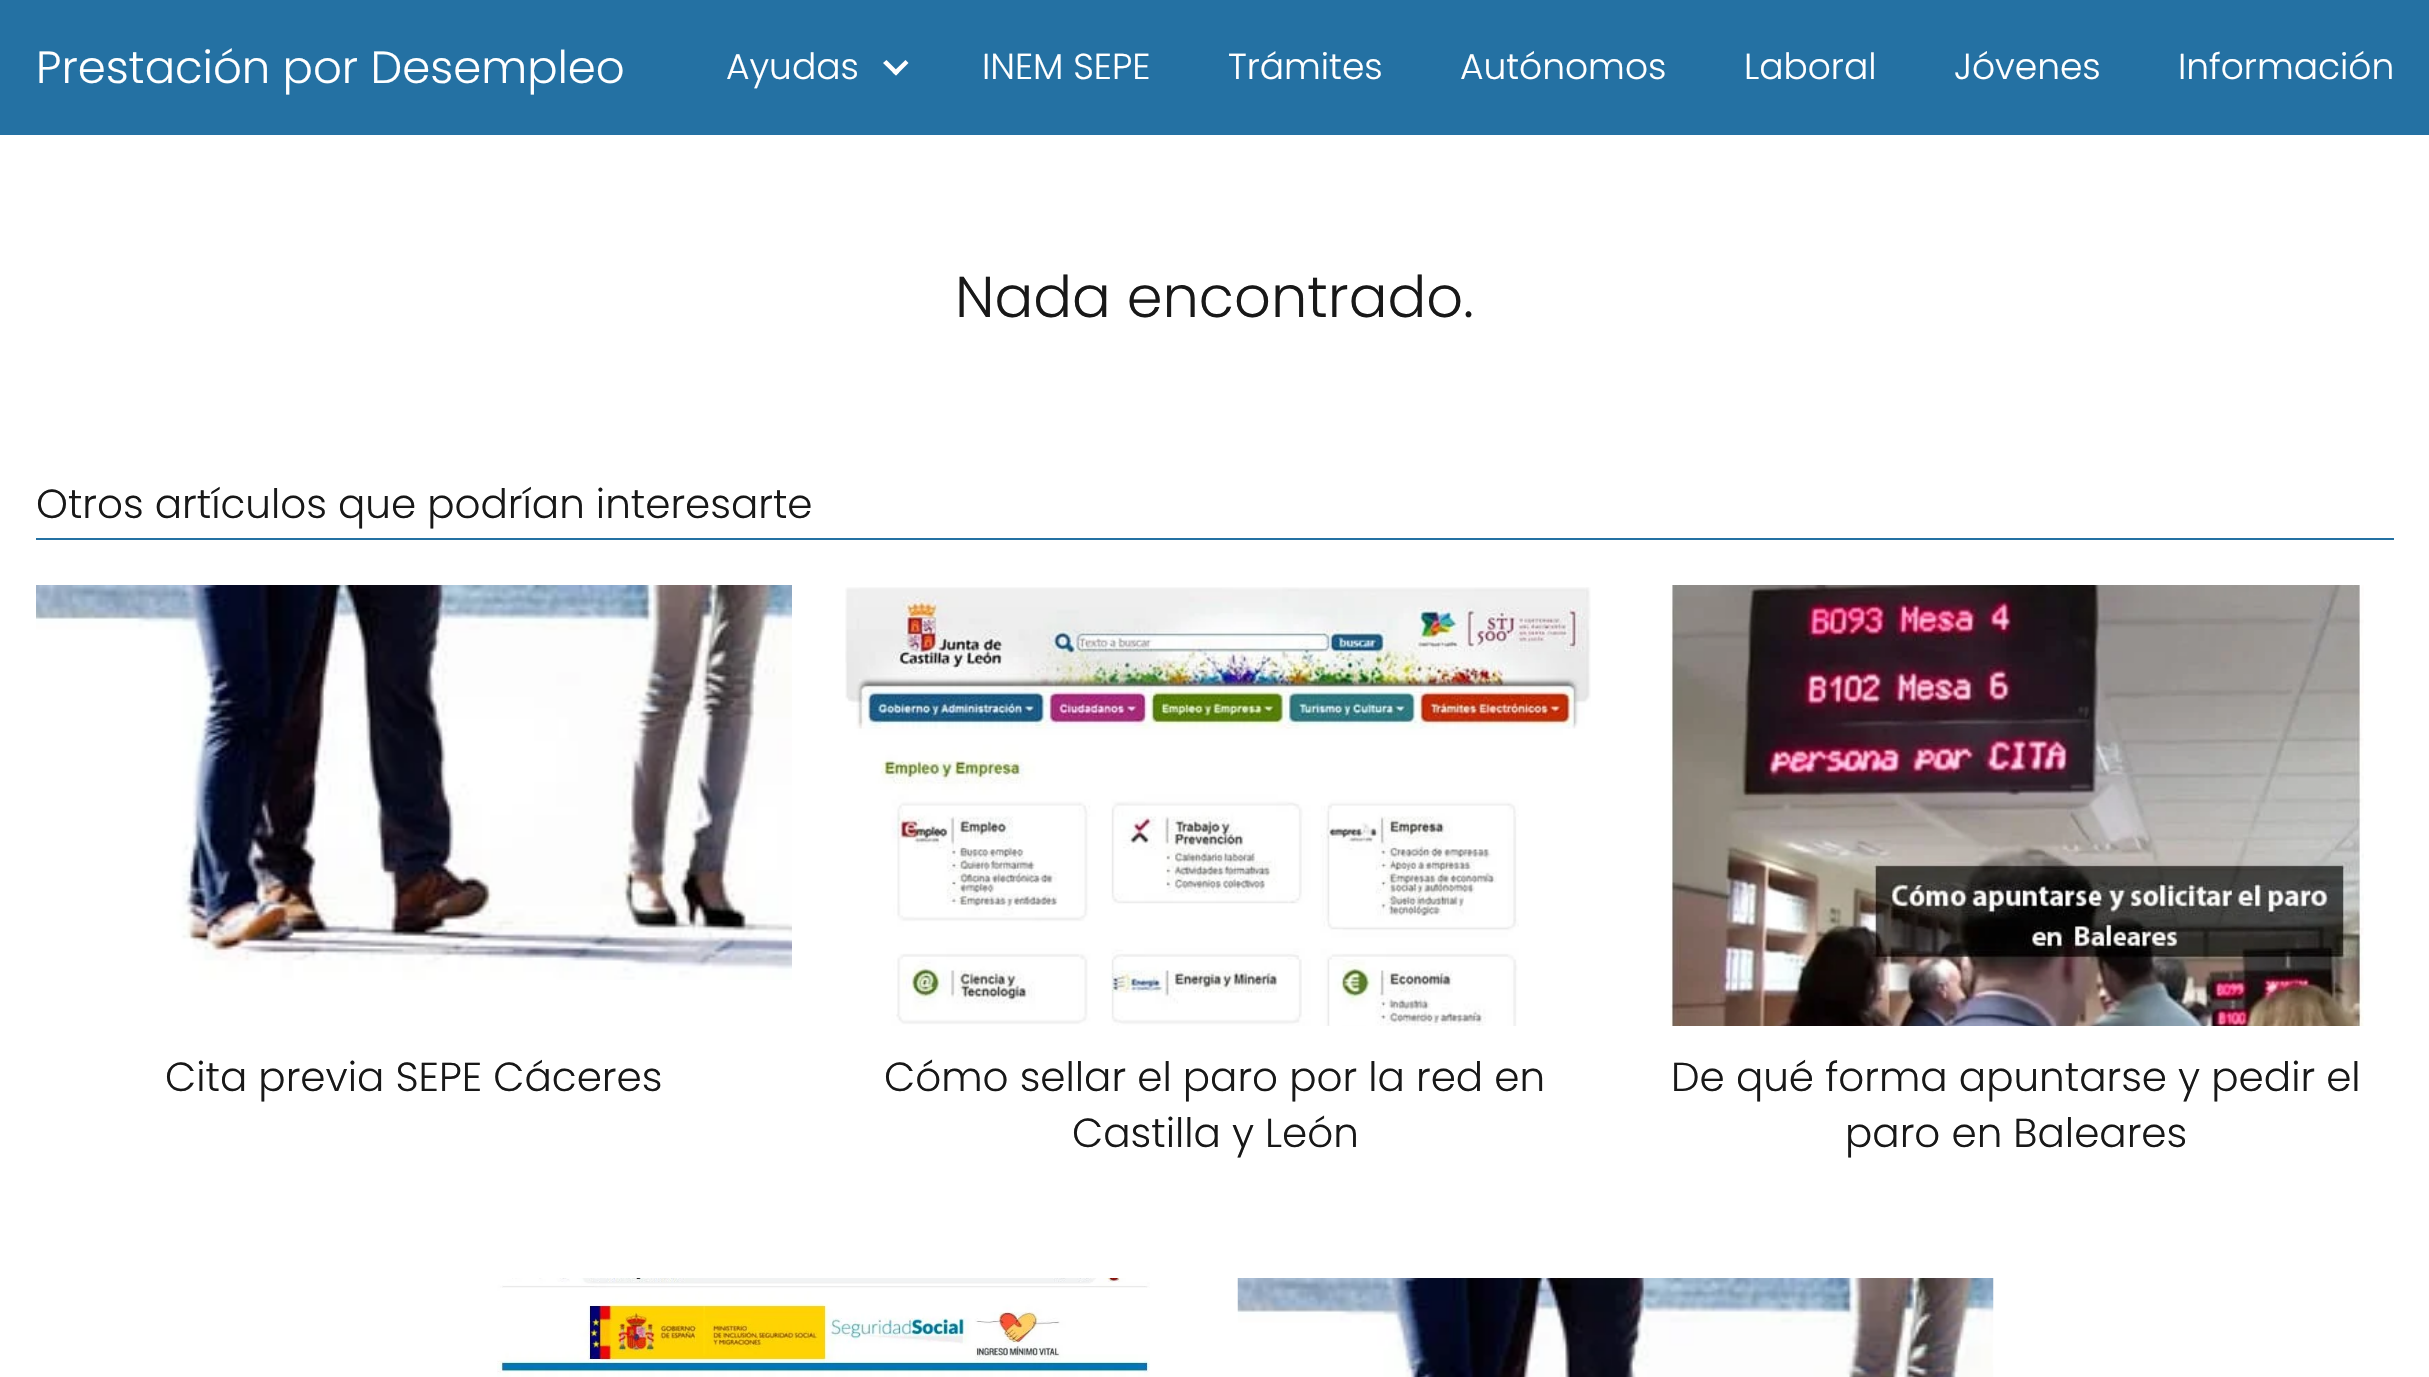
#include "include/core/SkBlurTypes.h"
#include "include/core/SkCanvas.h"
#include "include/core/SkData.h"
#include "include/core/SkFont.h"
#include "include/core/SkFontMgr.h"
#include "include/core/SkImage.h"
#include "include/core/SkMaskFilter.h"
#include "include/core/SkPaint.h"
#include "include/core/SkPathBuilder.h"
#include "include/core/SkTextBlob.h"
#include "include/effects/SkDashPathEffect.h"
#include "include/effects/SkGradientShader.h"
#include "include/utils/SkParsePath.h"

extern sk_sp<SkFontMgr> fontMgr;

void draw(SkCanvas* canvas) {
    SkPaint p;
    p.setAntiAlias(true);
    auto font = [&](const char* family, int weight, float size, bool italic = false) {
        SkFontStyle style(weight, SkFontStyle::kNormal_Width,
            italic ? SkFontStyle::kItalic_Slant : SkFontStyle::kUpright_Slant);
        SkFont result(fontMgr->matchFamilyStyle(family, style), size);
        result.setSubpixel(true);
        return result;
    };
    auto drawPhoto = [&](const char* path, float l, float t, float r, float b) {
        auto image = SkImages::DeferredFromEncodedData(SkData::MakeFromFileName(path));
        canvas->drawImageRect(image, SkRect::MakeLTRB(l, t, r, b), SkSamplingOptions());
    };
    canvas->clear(0xFFFFFFFF);
    p.setColor(0xFF2471A3);
    canvas->drawRect(SkRect::MakeLTRB(0, 0, 2429, 135), p);
    auto font1 = font("Poppins", 300, 45);
    p.setColor(0xFFFFFFFF);
    canvas->drawString("Prestación por Desempleo", 36, 83, font1, p);
    auto font2 = font("Poppins", 300, 36);
    canvas->drawString("Ayudas", 726, 79, font2, p);
    canvas->drawPath(SkPathBuilder().moveTo(905.5f, 60).lineTo(908.5f, 63).lineTo(896, 75.5f).lineTo(892.5f, 72.5f).close().detach(), p);
    canvas->drawPath(SkPathBuilder().moveTo(886.5f, 60).lineTo(899, 72.5f).lineTo(896, 75.5f).lineTo(883, 63).close().detach(), p);
    {
        const struct { const char* s; float x, y; } items[] = {
            {"INEM SEPE", 982, 79},
            {"Trámites", 1228, 79},
            {"Autónomos", 1460, 79},
            {"Laboral", 1744, 79},
            {"Jóvenes", 1954, 79},
            {"Información", 2178, 79},
        };
        for (auto [s, x, y] : items) {
            canvas->drawString(s, x, y, font2, p);
        }
    }
    auto font3 = font("Poppins", 300, 57.5f);
    p.setColor(0xFF181818);
    canvas->drawString("Nada encontrado.", 955, 317, font3, p);
    p.setColor(0xFF2471A3);
    canvas->drawRect(SkRect::MakeLTRB(36, 538, 2394, 540), p);
    auto font4 = font("Poppins", 300, 40.5f);
    p.setColor(0xFF181818);
    canvas->drawString("Otros artículos que podrían interesarte", 36, 518, font4, p);
    drawPhoto("media/1.png", 36, 585, 792, 980);
    canvas->drawString("Cita previa SEPE Cáceres", 165, 1091, font4, p);
    drawPhoto("media/2.png", 845, 587, 1591, 1026);
    canvas->drawString("Cómo sellar el paro por la red en", 884, 1091, font4, p);
    canvas->drawString("Castilla y León", 1072, 1147, font4, p);
    drawPhoto("media/3.png", 1670, 585, 2364, 1026);
    canvas->drawString("De qué forma apuntarse y pedir el", 1671, 1091, font4, p);
    canvas->drawString("paro en Baleares", 1845, 1147, font4, p);
    drawPhoto("media/4.png", 497, 1278, 1150, 1377);
    drawPhoto("media/5.png", 1237, 1278, 1994, 1377);
}
